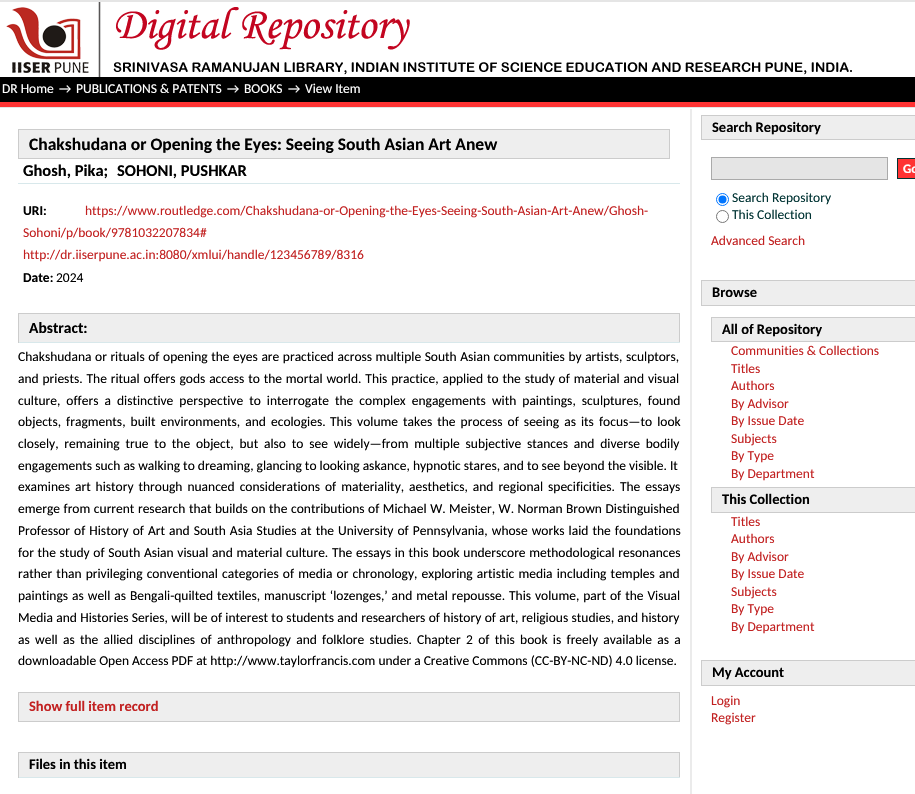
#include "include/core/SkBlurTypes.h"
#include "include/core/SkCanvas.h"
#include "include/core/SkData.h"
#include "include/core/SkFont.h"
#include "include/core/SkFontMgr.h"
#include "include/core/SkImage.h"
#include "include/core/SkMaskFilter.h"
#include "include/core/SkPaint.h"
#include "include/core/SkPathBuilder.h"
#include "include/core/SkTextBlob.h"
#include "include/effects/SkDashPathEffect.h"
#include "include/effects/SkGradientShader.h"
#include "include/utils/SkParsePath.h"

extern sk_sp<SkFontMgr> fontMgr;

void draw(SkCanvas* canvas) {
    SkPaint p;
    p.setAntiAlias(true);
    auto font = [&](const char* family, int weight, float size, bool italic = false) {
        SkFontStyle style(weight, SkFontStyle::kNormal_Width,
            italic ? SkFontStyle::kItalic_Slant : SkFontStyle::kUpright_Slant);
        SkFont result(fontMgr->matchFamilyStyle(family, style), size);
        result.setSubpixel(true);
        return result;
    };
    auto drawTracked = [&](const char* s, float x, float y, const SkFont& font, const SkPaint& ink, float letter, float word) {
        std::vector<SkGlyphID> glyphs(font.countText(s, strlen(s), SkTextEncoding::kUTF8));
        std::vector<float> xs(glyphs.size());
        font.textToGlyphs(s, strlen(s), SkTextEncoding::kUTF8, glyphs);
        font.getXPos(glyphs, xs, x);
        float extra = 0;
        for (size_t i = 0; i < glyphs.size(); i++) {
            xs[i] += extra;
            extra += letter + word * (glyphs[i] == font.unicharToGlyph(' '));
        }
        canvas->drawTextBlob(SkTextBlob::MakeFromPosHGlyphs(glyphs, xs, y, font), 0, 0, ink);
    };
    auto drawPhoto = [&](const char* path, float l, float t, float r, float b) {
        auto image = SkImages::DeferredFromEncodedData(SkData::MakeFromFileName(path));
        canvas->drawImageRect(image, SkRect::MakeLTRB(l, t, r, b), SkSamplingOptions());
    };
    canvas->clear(0xFFE5E5E5);
    p.setColor(0xFFFFFFFF);
    canvas->drawRect(SkRect::MakeLTRB(0, 2, 915, 77), p);
    drawPhoto("media/1.png", 6, 2, 852, 77);
    p.setColor(0xFF000000);
    canvas->drawRect(SkRect::MakeLTRB(0, 77, 915, 102), p);
    p.setColor(0xFFFF3333);
    canvas->drawRect(SkRect::MakeLTRB(0, 102, 915, 107), p);
    auto font1 = font("Carlito", 400, 13.5f);
    p.setColor(0xFFFFFFFF);
    {
        const struct { const char* s; float x, y; } items[] = {
            {"DR Home", 2, 93},
            {"→", 59, 93},
            {"PUBLICATIONS & PATENTS", 76, 93},
            {"→", 227, 93},
            {"BOOKS", 244, 93},
            {"→", 288, 93},
            {"View Item", 305, 93},
        };
        for (auto [s, x, y] : items) {
            canvas->drawString(s, x, y, font1, p);
        }
    }
    canvas->drawRect(SkRect::MakeLTRB(0, 108, 915, 794), p);
    p.setColor(0xFFEBEBEB);
    canvas->drawRect(SkRect::MakeLTRB(690, 109, 692, 794), p);
    p.setColor(0xFFEEEEEE);
    canvas->drawRect(SkRect::MakeLTRB(18.5f, 129.5f, 669.5f, 158.5f), p);
    p.setStyle(SkPaint::kStroke_Style);
    p.setStrokeWidth(1);
    p.setColor(0xFFCCCCCC);
    canvas->drawRect(SkRect::MakeLTRB(18.5f, 129.5f, 669.5f, 158.5f), p);
    auto font2 = font("Carlito", 700, 17.55f);
    p.setStyle(SkPaint::kFill_Style);
    p.setColor(0xFF000000);
    canvas->drawString("Chakshudana or Opening the Eyes: Seeing South Asian Art Anew", 29, 150, font2, p);
    p.setColor(0xFFD8E8EB);
    canvas->drawRect(SkRect::MakeLTRB(18, 183, 680, 184), p);
    auto font3 = font("Carlito", 700, 16.5f);
    p.setColor(0xFF000000);
    canvas->drawString("Ghosh, Pika;", 23, 176, font3, p);
    canvas->drawString("SOHONI, PUSHKAR", 117, 176, font3, p);
    auto font4 = font("Carlito", 700, 13.5f);
    canvas->drawString("URI:", 23, 215, font4, p);
    p.setColor(0xFFC22121);
    {
        const struct { const char* s; float x, y; } items[] = {
            {"https://www.routledge.com/Chakshudana-or-Opening-the-Eyes-Seeing-South-Asian-Art-Anew/Ghosh-", 85, 215},
            {"Sohoni/p/book/9781032207834#", 23, 237},
            {"http://dr.iiserpune.ac.in:8080/xmlui/handle/123456789/8316", 23, 259},
        };
        for (auto [s, x, y] : items) {
            canvas->drawString(s, x, y, font1, p);
        }
    }
    p.setColor(0xFF000000);
    canvas->drawString("Date:", 23, 282, font4, p);
    canvas->drawString("2024", 56, 282, font1, p);
    {
        const struct { float l, t, r, b; SkColor color; } items[] = {
            {19, 314, 679, 342, 0xFFEEEEEE},
            {18, 313, 680, 314, 0xFFCCCCCC},
            {679, 313, 680, 343, 0xFFCCCCCC},
            {18, 342, 680, 343, 0xFFD8E8EB},
            {18, 313, 19, 343, 0xFFCCCCCC},
        };
        for (auto [l, t, r, b, color] : items) {
            p.setColor(color);
            canvas->drawRect(SkRect::MakeLTRB(l, t, r, b), p);
        }
    }
    auto font5 = font("Carlito", 700, 15.5f);
    p.setColor(0xFF000000);
    canvas->drawString("Abstract:", 29, 333, font5, p);
    drawTracked("Chakshudana or rituals of opening the eyes are practiced across multiple South Asian communities by artists, sculptors,", 18, 361, font1, p, 0, 0.5f);
    drawTracked("and priests. The ritual offers gods access to the mortal world. This practice, applied to the study of material and visual", 18, 383, font1, p, 0, 0.8f);
    drawTracked("culture, offers a distinctive perspective to interrogate the complex engagements with paintings, sculptures, found", 18, 405, font1, p, 0, 3);
    drawTracked("objects, fragments, built environments, and ecologies.", 18, 426, font1, p, 0, 2);
    drawTracked("This volume takes the process of seeing as its focus—to look", 330, 426, font1, p, 0, 2);
    drawTracked("closely, remaining true to the object, but also to see widely—from multiple subjective stances and diverse bodily", 18, 448, font1, p, 0, 2.75f);
    canvas->drawString("engagements such as walking to dreaming, glancing to looking askance, hypnotic stares, and to see beyond the visible. It", 18, 470, font1, p);
    drawTracked("examines art history through nuanced considerations of materiality, aesthetics, and regional specificities. The essays", 18, 491, font1, p, 0, 1.9f);
    drawTracked("emerge from current research that builds on the contributions of Michael W. Meister, W. Norman Brown Distinguished", 18, 513, font1, p, 0, 0.5f);
    drawTracked("Professor of History of Art and South Asia Studies at the University of Pennsylvania, whose works laid the foundations", 18, 535, font1, p, 0, 1);
    drawTracked("for the study of South Asian visual and material culture. The essays in this book underscore methodological resonances", 18, 557, font1, p, 0, 0.6f);
    drawTracked("rather than privileging conventional categories of media or chronology, exploring artistic media including temples and", 18, 578, font1, p, 0, 1.1f);
    drawTracked("paintings as well as Bengali-quilted textiles, manuscript ‘lozenges,’ and metal repousse.", 18, 600, font1, p, 0, 0.9f);
    drawTracked("This volume, part of the Visual", 509, 600, font1, p, 0, 0.9f);
    drawTracked("Media and Histories Series, will be of interest to students and researchers of history of art, religious studies, and history", 18, 622, font1, p, 0, 0.3f);
    drawTracked("as well as the allied disciplines of anthropology and folklore studies.", 18, 644, font1, p, 0, 2.25f);
    drawTracked("Chapter 2 of this book is freely available as a", 417, 644, font1, p, 0, 2.25f);
    canvas->drawString("downloadable Open Access PDF at http://www.taylorfrancis.com under a Creative Commons (CC-BY-NC-ND) 4.0 license.", 18, 665, font1, p);
    p.setColor(0xFFEEEEEE);
    canvas->drawRect(SkRect::MakeLTRB(18.5f, 692.5f, 679.5f, 721.5f), p);
    p.setStyle(SkPaint::kStroke_Style);
    p.setColor(0xFFCCCCCC);
    canvas->drawRect(SkRect::MakeLTRB(18.5f, 692.5f, 679.5f, 721.5f), p);
    auto font6 = font("Carlito", 700, 14.5f);
    p.setStyle(SkPaint::kFill_Style);
    p.setColor(0xFFC22121);
    canvas->drawString("Show full item record", 29, 711, font6, p);
    {
        const struct { float l, t, r, b; SkColor color; } items[] = {
            {19, 753, 679, 777, 0xFFEEEEEE},
            {18, 752, 680, 753, 0xFFCCCCCC},
            {679, 752, 680, 778, 0xFFCCCCCC},
            {18, 777, 680, 778, 0xFFD8E8EB},
            {18, 752, 19, 778, 0xFFCCCCCC},
        };
        for (auto [l, t, r, b, color] : items) {
            p.setColor(color);
            canvas->drawRect(SkRect::MakeLTRB(l, t, r, b), p);
        }
    }
    p.setColor(0xFF000000);
    canvas->drawString("Files in this item", 29, 769, font6, p);
    p.setColor(0xFFEEEEEE);
    canvas->drawRect(SkRect::MakeLTRB(701.5f, 115.5f, 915.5f, 139.5f), p);
    p.setStyle(SkPaint::kStroke_Style);
    p.setColor(0xFFCCCCCC);
    canvas->drawRect(SkRect::MakeLTRB(701.5f, 115.5f, 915.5f, 139.5f), p);
    p.setStyle(SkPaint::kFill_Style);
    p.setColor(0xFF000000);
    canvas->drawString("Search Repository", 712, 132, font6, p);
    p.setColor(0xFFE5E5E5);
    canvas->drawRect(SkRect::MakeLTRB(711.5f, 157.5f, 887.5f, 179.5f), p);
    p.setStyle(SkPaint::kStroke_Style);
    p.setColor(0xFFAAAAAA);
    canvas->drawRect(SkRect::MakeLTRB(711.5f, 157.5f, 887.5f, 179.5f), p);
    p.setStyle(SkPaint::kFill_Style);
    p.setColor(0xFFFF3333);
    canvas->drawRect(SkRect::MakeLTRB(897.5f, 158.5f, 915.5f, 178.5f), p);
    p.setStyle(SkPaint::kStroke_Style);
    p.setColor(0xFF003333);
    canvas->drawRect(SkRect::MakeLTRB(897.5f, 158.5f, 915.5f, 178.5f), p);
    auto font7 = font("Carlito", 700, 13);
    p.setStyle(SkPaint::kFill_Style);
    p.setColor(0xFFFFFFFF);
    canvas->drawString("Go", 903, 173, font7, p);
    p.setStyle(SkPaint::kStroke_Style);
    p.setColor(0xFF0075FF);
    canvas->drawCircle(722.5f, 199.5f, 6, p);
    p.setStyle(SkPaint::kFill_Style);
    canvas->drawCircle(722.5f, 199.5f, 4, p);
    p.setColor(0xFF003333);
    canvas->drawString("Search Repository", 732, 202, font1, p);
    p.setStyle(SkPaint::kStroke_Style);
    p.setColor(0xFF767676);
    canvas->drawCircle(722.5f, 216.5f, 6, p);
    p.setStyle(SkPaint::kFill_Style);
    p.setColor(0xFF003333);
    canvas->drawString("This Collection", 732, 219, font1, p);
    p.setColor(0xFFC22121);
    canvas->drawString("Advanced Search", 711, 245, font1, p);
    p.setColor(0xFFEEEEEE);
    canvas->drawRect(SkRect::MakeLTRB(701.5f, 280.5f, 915.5f, 305.5f), p);
    p.setStyle(SkPaint::kStroke_Style);
    p.setColor(0xFFCCCCCC);
    canvas->drawRect(SkRect::MakeLTRB(701.5f, 280.5f, 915.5f, 305.5f), p);
    p.setStyle(SkPaint::kFill_Style);
    p.setColor(0xFF000000);
    canvas->drawString("Browse", 712, 297, font6, p);
    p.setColor(0xFFEEEEEE);
    canvas->drawRect(SkRect::MakeLTRB(711.5f, 317.5f, 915.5f, 341.5f), p);
    p.setStyle(SkPaint::kStroke_Style);
    p.setColor(0xFFCCCCCC);
    canvas->drawRect(SkRect::MakeLTRB(711.5f, 317.5f, 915.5f, 341.5f), p);
    p.setStyle(SkPaint::kFill_Style);
    p.setColor(0xFF000000);
    canvas->drawString("All of Repository", 722, 334, font6, p);
    p.setColor(0xFFC22121);
    {
        const struct { const char* s; float x, y; } items[] = {
            {"Communities & Collections", 731, 355},
            {"Titles", 731, 373},
            {"Authors", 731, 390},
            {"By Advisor", 731, 408},
            {"By Issue Date", 731, 425},
            {"Subjects", 731, 443},
            {"By Type", 731, 460},
            {"By Department", 731, 478},
        };
        for (auto [s, x, y] : items) {
            canvas->drawString(s, x, y, font1, p);
        }
    }
    p.setColor(0xFFEEEEEE);
    canvas->drawRect(SkRect::MakeLTRB(711.5f, 487.5f, 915.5f, 512.5f), p);
    p.setStyle(SkPaint::kStroke_Style);
    p.setColor(0xFFCCCCCC);
    canvas->drawRect(SkRect::MakeLTRB(711.5f, 487.5f, 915.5f, 512.5f), p);
    p.setStyle(SkPaint::kFill_Style);
    p.setColor(0xFF000000);
    canvas->drawString("This Collection", 722, 504, font6, p);
    p.setColor(0xFFC22121);
    {
        const struct { const char* s; float x, y; } items[] = {
            {"Titles", 731, 526},
            {"Authors", 731, 543},
            {"By Advisor", 731, 561},
            {"By Issue Date", 731, 578},
            {"Subjects", 731, 596},
            {"By Type", 731, 613},
            {"By Department", 731, 631},
        };
        for (auto [s, x, y] : items) {
            canvas->drawString(s, x, y, font1, p);
        }
    }
    p.setColor(0xFFEEEEEE);
    canvas->drawRect(SkRect::MakeLTRB(701.5f, 660.5f, 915.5f, 685.5f), p);
    p.setStyle(SkPaint::kStroke_Style);
    p.setColor(0xFFCCCCCC);
    canvas->drawRect(SkRect::MakeLTRB(701.5f, 660.5f, 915.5f, 685.5f), p);
    p.setStyle(SkPaint::kFill_Style);
    p.setColor(0xFF000000);
    canvas->drawString("My Account", 712, 677, font6, p);
    p.setColor(0xFFC22121);
    canvas->drawString("Login", 711, 705, font1, p);
    canvas->drawString("Register", 711, 722, font1, p);
}
